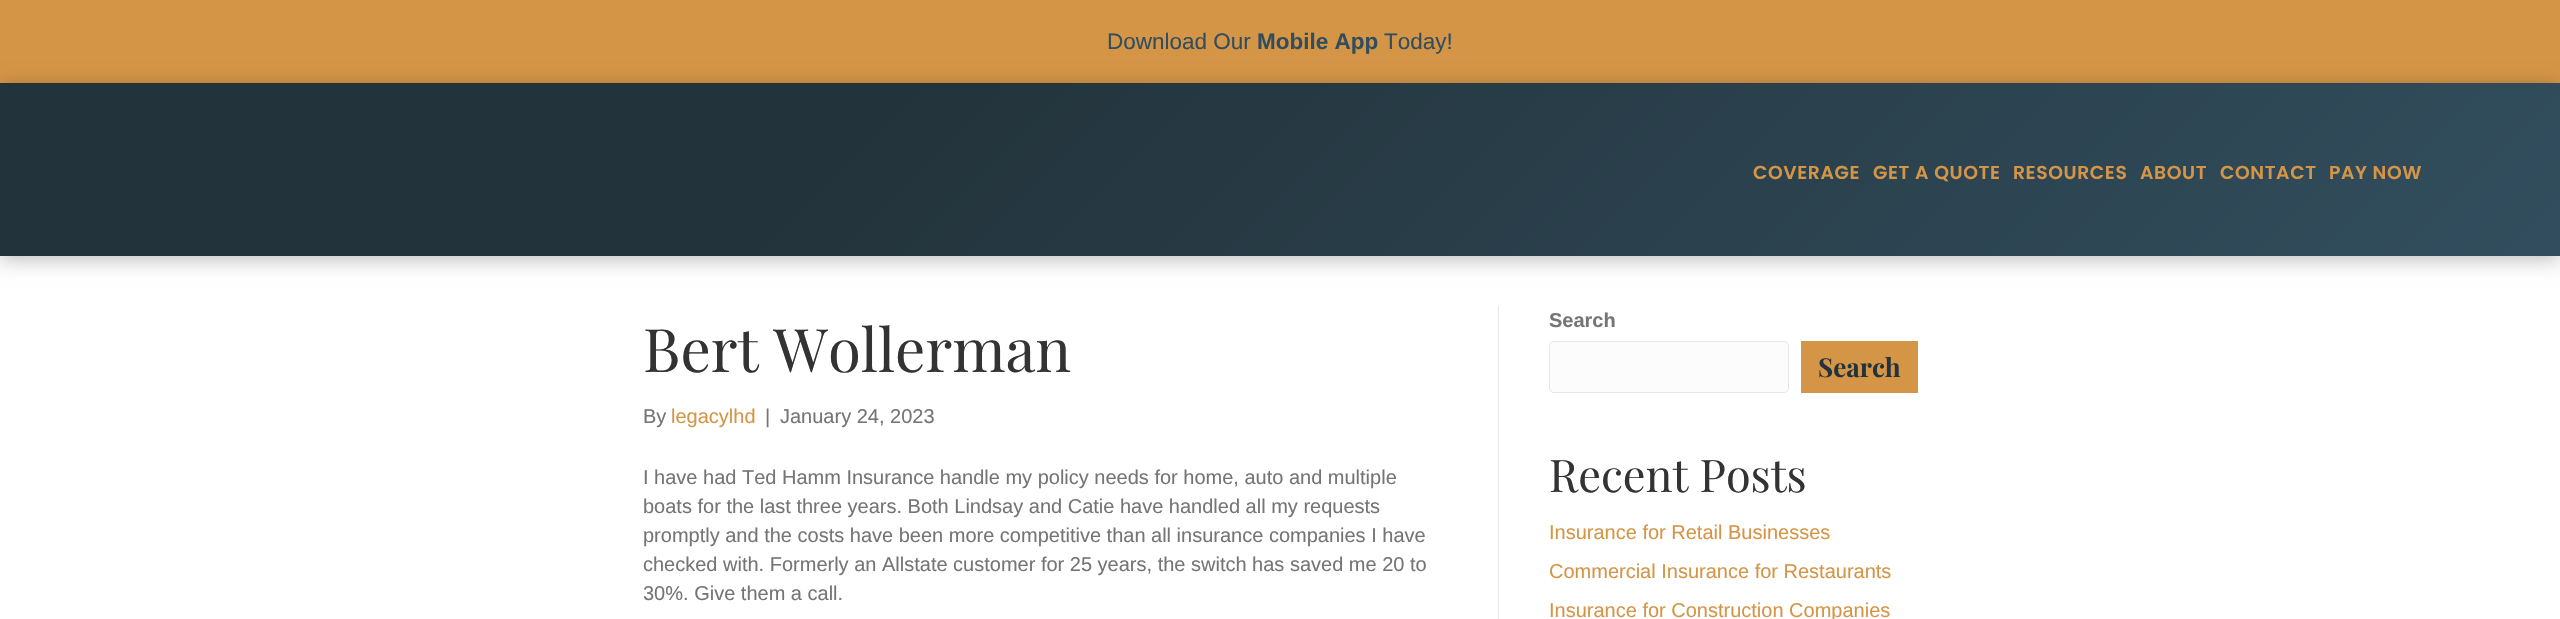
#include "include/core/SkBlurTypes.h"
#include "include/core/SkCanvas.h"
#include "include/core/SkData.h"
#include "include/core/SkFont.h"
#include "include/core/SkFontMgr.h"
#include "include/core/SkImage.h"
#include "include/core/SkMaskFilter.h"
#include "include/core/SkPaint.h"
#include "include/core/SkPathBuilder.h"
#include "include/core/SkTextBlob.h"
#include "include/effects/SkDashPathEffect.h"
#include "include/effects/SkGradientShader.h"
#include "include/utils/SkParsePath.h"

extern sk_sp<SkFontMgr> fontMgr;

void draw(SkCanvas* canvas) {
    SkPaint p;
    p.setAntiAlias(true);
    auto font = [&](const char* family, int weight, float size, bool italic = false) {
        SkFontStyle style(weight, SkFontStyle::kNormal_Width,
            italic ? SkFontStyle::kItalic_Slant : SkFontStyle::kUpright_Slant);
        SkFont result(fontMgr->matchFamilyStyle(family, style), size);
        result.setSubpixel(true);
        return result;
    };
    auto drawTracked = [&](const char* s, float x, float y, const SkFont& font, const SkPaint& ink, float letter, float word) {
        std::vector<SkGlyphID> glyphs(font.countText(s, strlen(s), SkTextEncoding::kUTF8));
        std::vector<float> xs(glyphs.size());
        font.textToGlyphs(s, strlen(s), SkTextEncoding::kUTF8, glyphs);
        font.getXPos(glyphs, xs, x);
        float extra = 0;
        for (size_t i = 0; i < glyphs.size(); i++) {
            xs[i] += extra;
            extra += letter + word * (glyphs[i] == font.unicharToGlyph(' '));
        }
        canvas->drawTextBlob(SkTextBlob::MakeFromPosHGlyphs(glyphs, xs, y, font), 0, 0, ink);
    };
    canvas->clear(0xFFFFFFFF);
    p.setColor(0xFFD59547);
    canvas->drawRect(SkRect::MakeLTRB(0, 0, 2560, 83), p);
    auto font1 = font("Liberation Sans", 400, 22.5f);
    p.setColor(0xFF324E5E);
    canvas->drawString("Download Our", 1107, 49, font1, p);
    auto font2 = font("Liberation Sans", 700, 22.5f);
    canvas->drawString("Mobile App", 1257, 49, font2, p);
    canvas->drawString("Today!", 1384, 49, font1, p);
    p.setColor(0x40000000);
    p.setMaskFilter(SkMaskFilter::MakeBlur(kNormal_SkBlurStyle, 9.5f));
    canvas->drawRect(SkRect::MakeLTRB(0, 86, 2560, 260), p);
    p.setMaskFilter(nullptr);
    {
        const SkColor colors[] = {0xFF324E5E, 0xFF23333B};
        const float stops[] = {0, 0.67f};
        const SkPoint ends[] = {{1963, 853}, {597, -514}};
        p.setShader(SkGradientShader::MakeLinear(ends, colors, stops, 2, SkTileMode::kClamp));
        p.setAlpha(255);
    }
    canvas->drawRect(SkRect::MakeLTRB(0, 83, 2560, 256), p);
    auto font3 = font("Poppins", 600, 18.75f);
    p.setShader(nullptr);
    p.setColor(0xFFD59547);
    {
        const struct { const char* s; float x, y; } items[] = {
            {"COVERAGE", 1753, 179},
            {"GET A QUOTE", 1873, 179},
            {"RESOURCES", 2013, 179},
            {"ABOUT", 2140, 179},
            {"CONTACT", 2220, 179},
            {"PAY NOW", 2329, 179},
        };
        for (auto [s, x, y] : items) {
            drawTracked(s, x, y, font3, p, 0.6f, 0);
        }
    }
    p.setColor(0xFFE6E6E6);
    canvas->drawRect(SkRect::MakeLTRB(1498, 306, 1499, 619), p);
    auto font4 = font("Playfair Display", 400, 60);
    p.setColor(0xFF333333);
    canvas->drawString("Bert Wollerman", 643, 372, font4, p);
    auto font5 = font("Liberation Sans", 400, 20);
    p.setColor(0xFF757575);
    canvas->drawString("By", 643, 423, font5, p);
    p.setColor(0xFFD59547);
    canvas->drawString("legacylhd", 671, 423, font5, p);
    p.setColor(0xFF757575);
    {
        const struct { const char* s; float x, y; } items[] = {
            {"|", 765, 423},
            {"January 24, 2023", 780, 423},
            {"I have had Ted Hamm Insurance handle my policy needs for home, auto and multiple", 643, 484},
            {"boats for the last three years. Both Lindsay and Catie have handled all my requests", 643, 513},
            {"promptly and the costs have been more competitive than all insurance companies I have", 643, 542},
            {"checked with. Formerly an Allstate customer for 25 years, the switch has saved me 20 to", 643, 571},
            {"30%. Give them a call.", 643, 600},
        };
        for (auto [s, x, y] : items) {
            canvas->drawString(s, x, y, font5, p);
        }
    }
    auto font6 = font("Liberation Sans", 700, 20);
    canvas->drawString("Search", 1549, 327, font6, p);
    p.setColor(0xFFFCFCFC);
    canvas->drawRoundRect(SkRect::MakeLTRB(1549.5f, 341.5f, 1788.5f, 392.5f), 4.5f, 4.5f, p);
    p.setStyle(SkPaint::kStroke_Style);
    p.setStrokeWidth(1);
    p.setColor(0xFFE6E6E6);
    canvas->drawRoundRect(SkRect::MakeLTRB(1549.5f, 341.5f, 1788.5f, 392.5f), 4.5f, 4.5f, p);
    p.setStyle(SkPaint::kFill_Style);
    p.setColor(0xFFD59547);
    canvas->drawRect(SkRect::MakeLTRB(1801, 341, 1918, 393), p);
    auto font7 = font("Playfair Display", 700, 26);
    p.setColor(0xFF23333B);
    canvas->drawString("Search", 1818, 377, font7, p);
    auto font8 = font("Playfair Display", 400, 45);
    p.setColor(0xFF333333);
    canvas->drawString("Recent Posts", 1549, 492, font8, p);
    p.setColor(0xFFD59547);
    {
        const struct { const char* s; float x, y; } items[] = {
            {"Insurance for Retail Businesses", 1549, 539},
            {"Commercial Insurance for Restaurants", 1549, 578},
            {"Insurance for Construction Companies", 1549, 617},
        };
        for (auto [s, x, y] : items) {
            canvas->drawString(s, x, y, font5, p);
        }
    }
}
